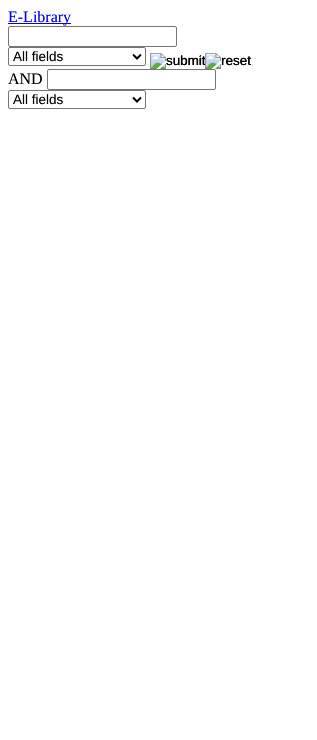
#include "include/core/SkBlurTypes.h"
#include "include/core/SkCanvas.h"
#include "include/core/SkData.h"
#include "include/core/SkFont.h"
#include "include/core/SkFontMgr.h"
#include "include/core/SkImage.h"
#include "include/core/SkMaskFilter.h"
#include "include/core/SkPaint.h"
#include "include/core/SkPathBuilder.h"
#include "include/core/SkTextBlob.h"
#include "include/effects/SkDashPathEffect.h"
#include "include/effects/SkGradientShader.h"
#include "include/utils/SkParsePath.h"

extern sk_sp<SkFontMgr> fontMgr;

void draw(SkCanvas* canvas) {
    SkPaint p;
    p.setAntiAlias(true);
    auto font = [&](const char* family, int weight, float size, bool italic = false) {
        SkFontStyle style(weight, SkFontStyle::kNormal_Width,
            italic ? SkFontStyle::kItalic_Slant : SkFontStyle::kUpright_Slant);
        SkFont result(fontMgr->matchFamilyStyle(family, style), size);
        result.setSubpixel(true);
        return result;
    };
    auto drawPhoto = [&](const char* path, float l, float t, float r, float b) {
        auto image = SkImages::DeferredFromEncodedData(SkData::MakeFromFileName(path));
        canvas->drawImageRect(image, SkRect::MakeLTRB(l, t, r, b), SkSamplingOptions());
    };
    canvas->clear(0xFFFFFFFF);
    p.setColor(0xFF0000EE);
    canvas->drawRect(SkRect::MakeLTRB(8, 23, 71, 24), p);
    auto font1 = font("Liberation Serif", 400, 16);
    canvas->drawString("E-Library", 8, 22, font1, p);
    p.setStyle(SkPaint::kStroke_Style);
    p.setStrokeWidth(1);
    p.setColor(0xFF767676);
    canvas->drawRoundRect(SkRect::MakeLTRB(8.5f, 26.5f, 176.5f, 46.5f), 1.5f, 1.5f, p);
    canvas->drawRoundRect(SkRect::MakeLTRB(8.5f, 47.5f, 145.5f, 65.5f), 1.5f, 1.5f, p);
    p.setStrokeWidth(2);
    p.setColor(0xFF000000);
    canvas->drawPath(SkPathBuilder().moveTo(133, 54.5f).lineTo(137, 58.5f).lineTo(141, 54.5f).detach(), p);
    auto font2 = font("Liberation Sans", 400, 13.5f);
    p.setStyle(SkPaint::kFill_Style);
    canvas->drawString("All fields", 13, 61, font2, p);
    drawPhoto("media/1.png", 150, 53, 205, 69);
    canvas->drawString("submit", 166, 65, font2, p);
    drawPhoto("media/2.png", 205, 53, 251, 69);
    canvas->drawString("reset", 221, 65, font2, p);
    canvas->drawString("AND", 8, 84, font1, p);
    p.setStyle(SkPaint::kStroke_Style);
    p.setStrokeWidth(1);
    p.setColor(0xFF767676);
    canvas->drawRoundRect(SkRect::MakeLTRB(47.5f, 69.5f, 215.5f, 89.5f), 1.5f, 1.5f, p);
    canvas->drawRoundRect(SkRect::MakeLTRB(8.5f, 90.5f, 145.5f, 108.5f), 1.5f, 1.5f, p);
    p.setStrokeWidth(2);
    p.setColor(0xFF000000);
    canvas->drawPath(SkPathBuilder().moveTo(133, 97.5f).lineTo(137, 101.5f).lineTo(141, 97.5f).detach(), p);
    p.setStyle(SkPaint::kFill_Style);
    canvas->drawString("All fields", 13, 104, font2, p);
}
